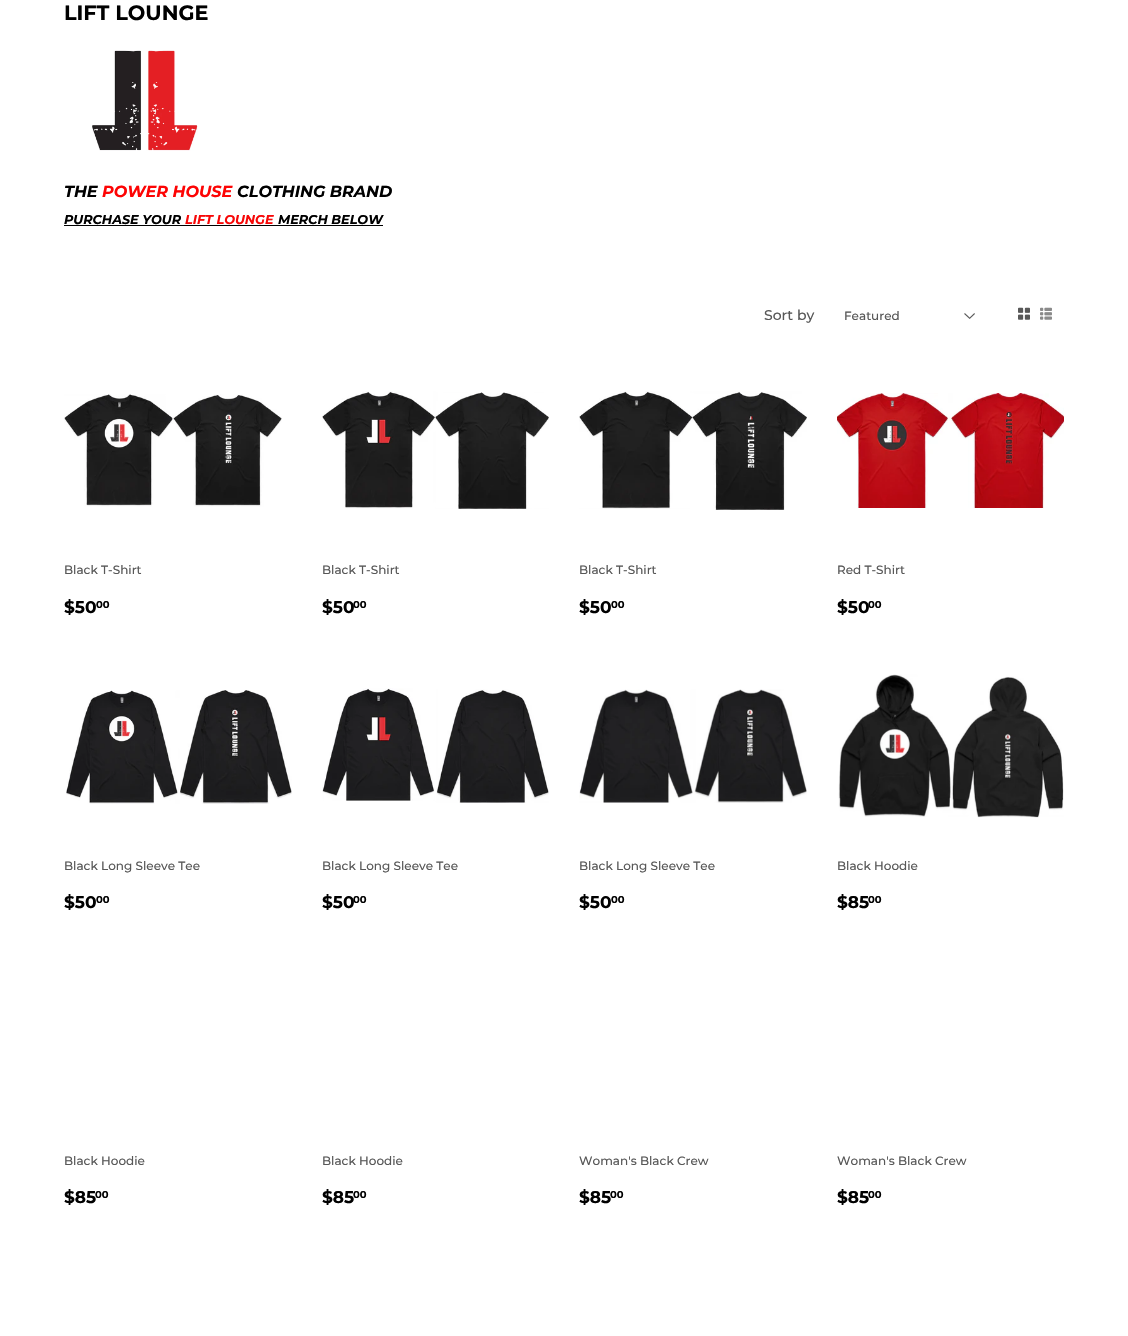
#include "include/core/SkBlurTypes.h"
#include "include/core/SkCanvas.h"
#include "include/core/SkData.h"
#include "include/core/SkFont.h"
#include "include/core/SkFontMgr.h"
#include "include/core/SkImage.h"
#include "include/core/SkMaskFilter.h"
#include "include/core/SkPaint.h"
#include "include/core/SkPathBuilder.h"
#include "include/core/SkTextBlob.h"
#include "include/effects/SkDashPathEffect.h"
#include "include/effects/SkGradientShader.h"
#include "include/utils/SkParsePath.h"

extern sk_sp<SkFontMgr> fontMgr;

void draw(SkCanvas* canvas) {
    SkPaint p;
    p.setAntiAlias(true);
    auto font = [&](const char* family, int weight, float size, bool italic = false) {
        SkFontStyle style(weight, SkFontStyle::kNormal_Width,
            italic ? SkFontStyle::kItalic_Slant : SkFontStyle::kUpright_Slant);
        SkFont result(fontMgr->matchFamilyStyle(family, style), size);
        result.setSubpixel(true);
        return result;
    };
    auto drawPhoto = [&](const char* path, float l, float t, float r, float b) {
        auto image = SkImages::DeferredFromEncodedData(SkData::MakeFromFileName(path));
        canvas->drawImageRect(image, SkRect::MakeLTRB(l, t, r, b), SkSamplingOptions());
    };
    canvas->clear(0xFFFFFFFF);
    auto font1 = font("Montserrat", 700, 20.75f);
    p.setColor(0xFF000000);
    canvas->drawString("LIFT LOUNGE", 64, 20, font1, p);
    drawPhoto("media/1.png", 92, 50, 198, 151);
    auto font2 = font("Montserrat", 700, 16, true);
    canvas->drawString("THE", 64, 197, font2, p);
    p.setColor(0xFFFD0404);
    canvas->drawString("POWER HOUSE", 102, 197, font2, p);
    p.setColor(0xFF000000);
    canvas->drawString("CLOTHING BRAND", 237, 197, font2, p);
    auto font3 = font("Montserrat", 700, 12.75f, true);
    canvas->drawString("PURCHASE YOUR", 64, 224, font3, p);
    canvas->drawRect(SkRect::MakeLTRB(64, 225, 383, 226), p);
    p.setColor(0xFFF70707);
    canvas->drawString("LIFT LOUNGE", 185, 224, font3, p);
    p.setColor(0xFF000000);
    canvas->drawString("MERCH BELOW", 278, 224, font3, p);
    auto font4 = font("Montserrat", 500, 14);
    p.setColor(0xFF585858);
    canvas->drawString("Sort by", 764, 320, font4, p);
    drawPhoto("media/2.png", 964, 313, 975, 319);
    auto font5 = font("Montserrat", 500, 12);
    canvas->drawString("Featured", 844, 320, font5, p);
    drawPhoto("media/3.png", 1018, 307, 1030, 320);
    drawPhoto("media/4.png", 1040, 307, 1052, 320);
    drawPhoto("media/5.png", 64, 394, 282, 507);
    canvas->drawString("Black T-Shirt", 64, 574, font5, p);
    auto font6 = font("Montserrat", 700, 17);
    p.setColor(0xFF000000);
    canvas->drawString("$50", 64, 613, font6, p);
    auto font7 = font("Montserrat", 700, 10);
    canvas->drawString("00", 96, 608, font7, p);
    drawPhoto("media/6.png", 322, 391, 549, 509);
    p.setColor(0xFF585858);
    canvas->drawString("Black T-Shirt", 322, 574, font5, p);
    p.setColor(0xFF000000);
    canvas->drawString("$50", 322, 613, font6, p);
    canvas->drawString("00", 353, 608, font7, p);
    drawPhoto("media/7.png", 579, 391, 807, 510);
    p.setColor(0xFF585858);
    canvas->drawString("Black T-Shirt", 579, 574, font5, p);
    p.setColor(0xFF000000);
    canvas->drawString("$50", 579, 613, font6, p);
    canvas->drawString("00", 611, 608, font7, p);
    drawPhoto("media/8.png", 837, 393, 1064, 508);
    p.setColor(0xFF585858);
    canvas->drawString("Red T-Shirt", 837, 574, font5, p);
    p.setColor(0xFF000000);
    canvas->drawString("$50", 837, 613, font6, p);
    canvas->drawString("00", 868, 608, font7, p);
    drawPhoto("media/9.png", 66, 690, 292, 804);
    p.setColor(0xFF585858);
    canvas->drawString("Black Long Sleeve Tee", 64, 870, font5, p);
    p.setColor(0xFF000000);
    canvas->drawString("$50", 64, 908, font6, p);
    canvas->drawString("00", 96, 903, font7, p);
    drawPhoto("media/10.png", 322, 688, 549, 803);
    p.setColor(0xFF585858);
    canvas->drawString("Black Long Sleeve Tee", 322, 870, font5, p);
    p.setColor(0xFF000000);
    canvas->drawString("$50", 322, 908, font6, p);
    canvas->drawString("00", 353, 903, font7, p);
    drawPhoto("media/11.png", 579, 689, 807, 803);
    p.setColor(0xFF585858);
    canvas->drawString("Black Long Sleeve Tee", 579, 870, font5, p);
    p.setColor(0xFF000000);
    canvas->drawString("$50", 579, 908, font6, p);
    canvas->drawString("00", 611, 903, font7, p);
    drawPhoto("media/12.png", 838, 674, 1064, 818);
    p.setColor(0xFF585858);
    canvas->drawString("Black Hoodie", 837, 870, font5, p);
    p.setColor(0xFF000000);
    canvas->drawString("$85", 837, 908, font6, p);
    canvas->drawString("00", 868, 903, font7, p);
    p.setColor(0xFF585858);
    canvas->drawString("Black Hoodie", 64, 1165, font5, p);
    p.setColor(0xFF000000);
    canvas->drawString("$85", 64, 1203, font6, p);
    canvas->drawString("00", 95, 1198, font7, p);
    p.setColor(0xFF585858);
    canvas->drawString("Black Hoodie", 322, 1165, font5, p);
    p.setColor(0xFF000000);
    canvas->drawString("$85", 322, 1203, font6, p);
    canvas->drawString("00", 353, 1198, font7, p);
    p.setColor(0xFF585858);
    canvas->drawString("Woman's Black Crew", 579, 1165, font5, p);
    p.setColor(0xFF000000);
    canvas->drawString("$85", 579, 1203, font6, p);
    canvas->drawString("00", 610, 1198, font7, p);
    p.setColor(0xFF585858);
    canvas->drawString("Woman's Black Crew", 837, 1165, font5, p);
    p.setColor(0xFF000000);
    canvas->drawString("$85", 837, 1203, font6, p);
    canvas->drawString("00", 868, 1198, font7, p);
}
